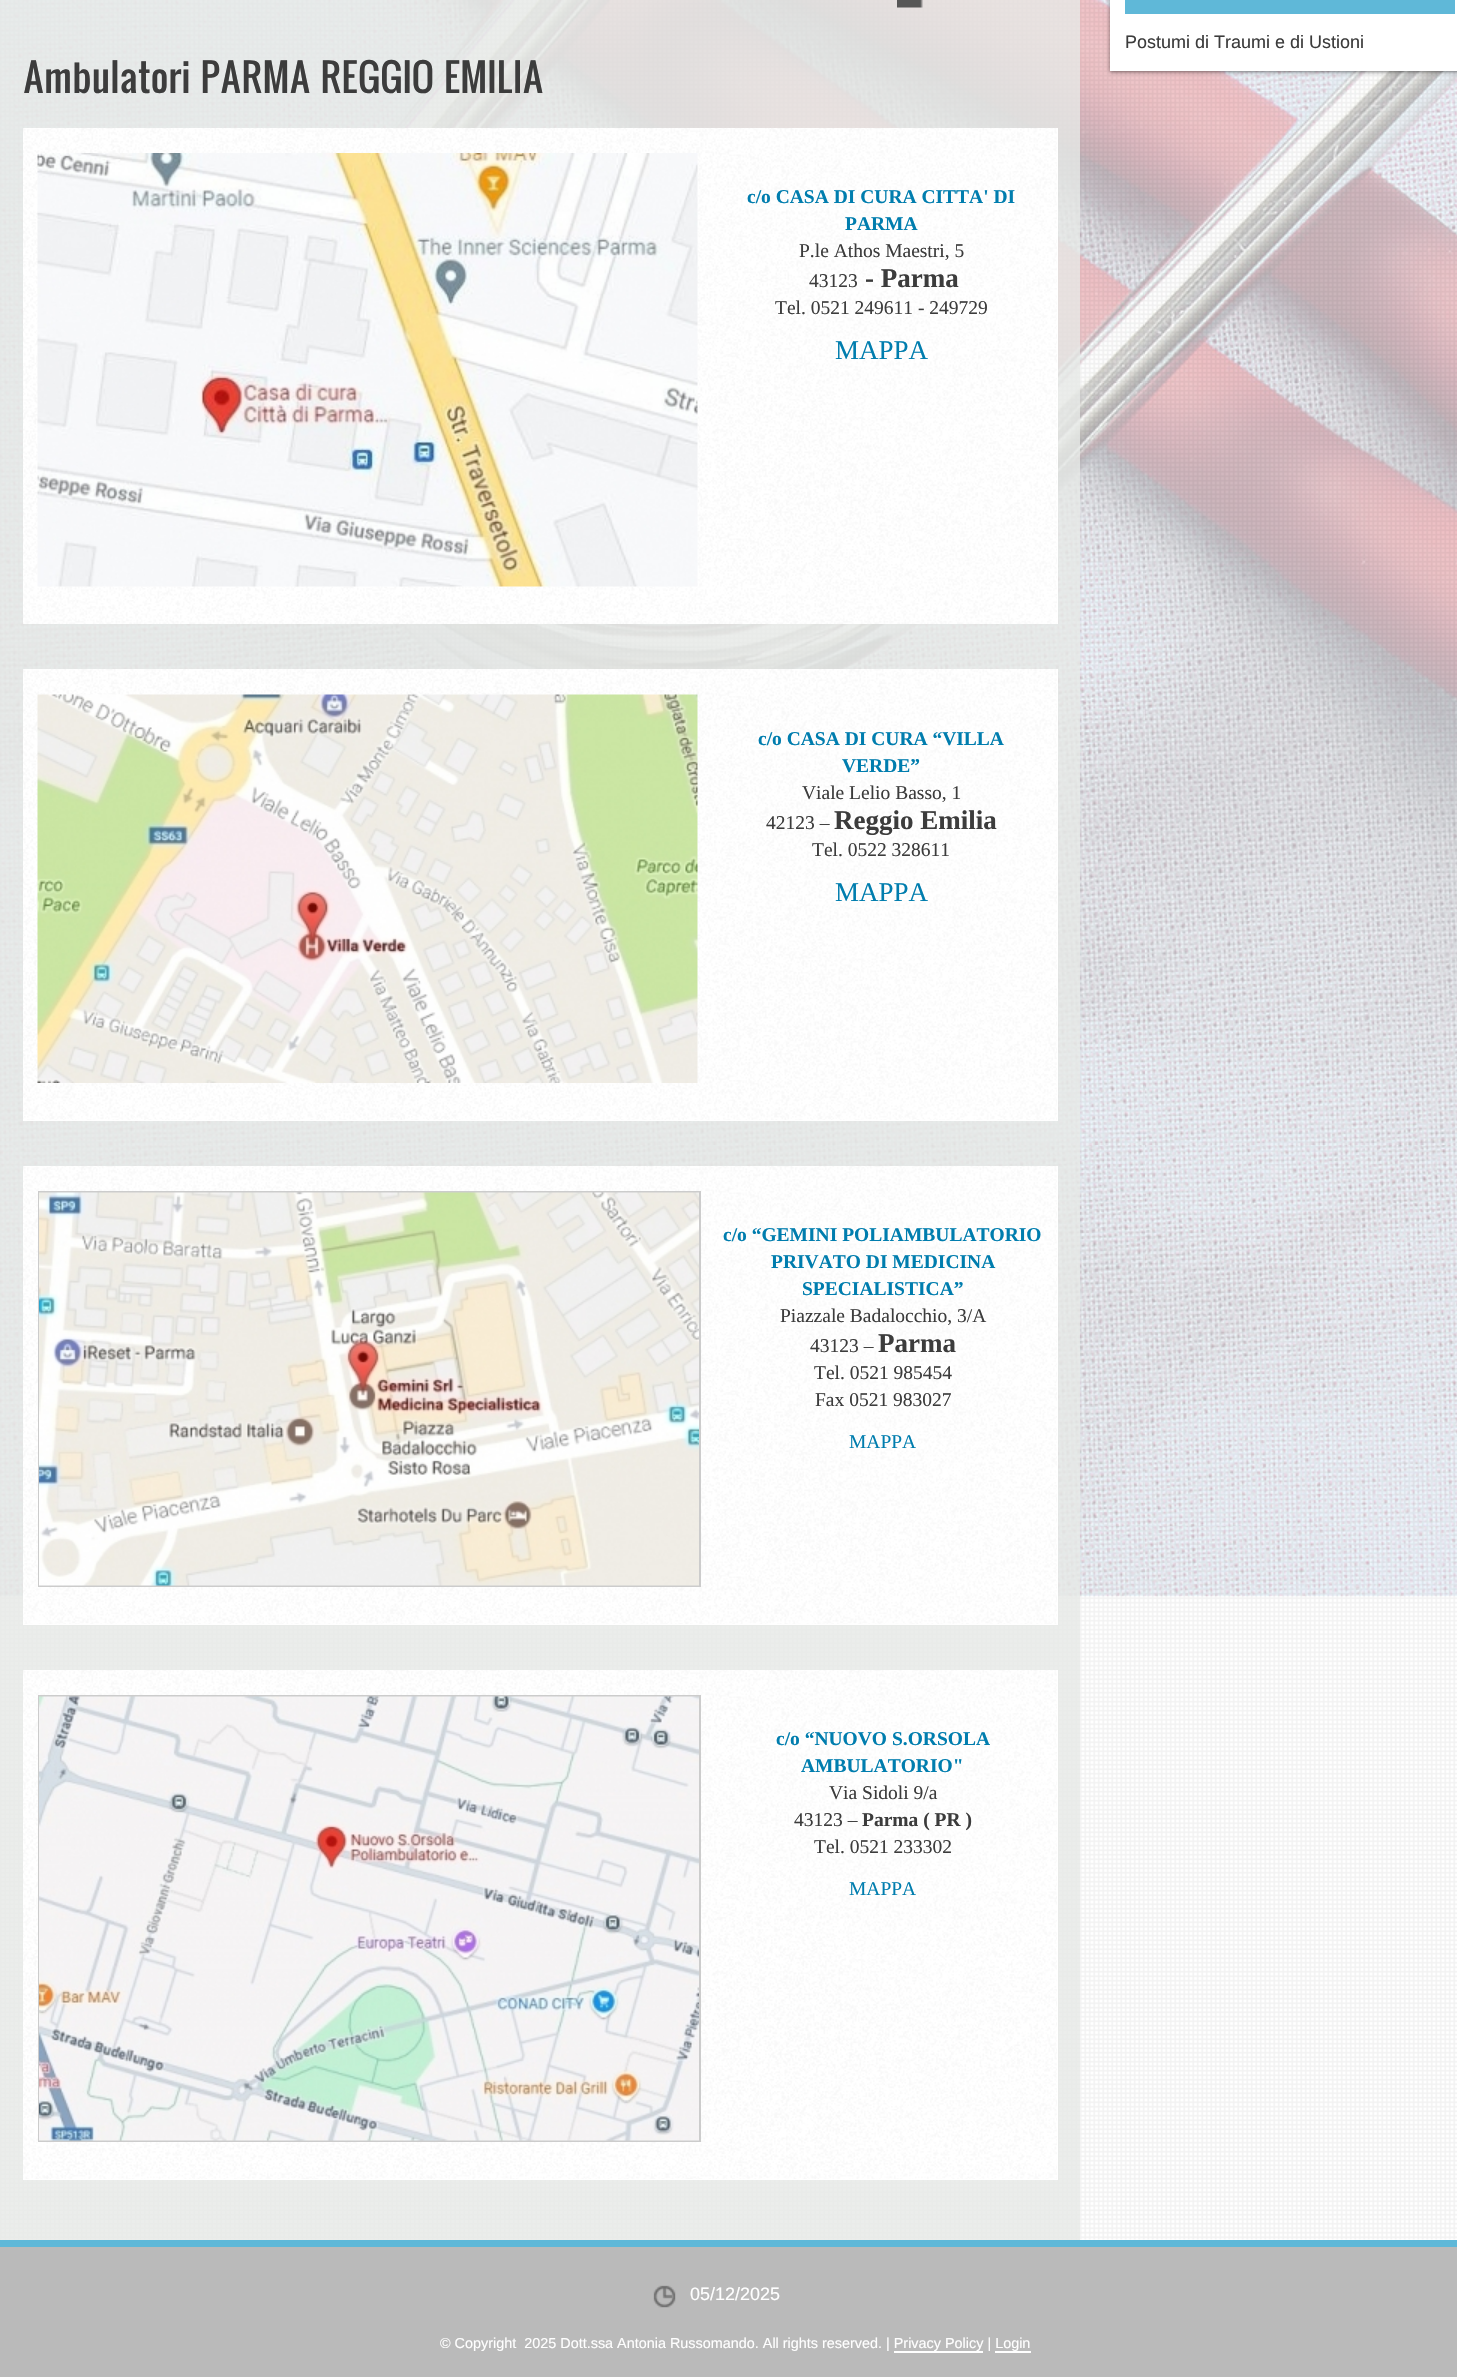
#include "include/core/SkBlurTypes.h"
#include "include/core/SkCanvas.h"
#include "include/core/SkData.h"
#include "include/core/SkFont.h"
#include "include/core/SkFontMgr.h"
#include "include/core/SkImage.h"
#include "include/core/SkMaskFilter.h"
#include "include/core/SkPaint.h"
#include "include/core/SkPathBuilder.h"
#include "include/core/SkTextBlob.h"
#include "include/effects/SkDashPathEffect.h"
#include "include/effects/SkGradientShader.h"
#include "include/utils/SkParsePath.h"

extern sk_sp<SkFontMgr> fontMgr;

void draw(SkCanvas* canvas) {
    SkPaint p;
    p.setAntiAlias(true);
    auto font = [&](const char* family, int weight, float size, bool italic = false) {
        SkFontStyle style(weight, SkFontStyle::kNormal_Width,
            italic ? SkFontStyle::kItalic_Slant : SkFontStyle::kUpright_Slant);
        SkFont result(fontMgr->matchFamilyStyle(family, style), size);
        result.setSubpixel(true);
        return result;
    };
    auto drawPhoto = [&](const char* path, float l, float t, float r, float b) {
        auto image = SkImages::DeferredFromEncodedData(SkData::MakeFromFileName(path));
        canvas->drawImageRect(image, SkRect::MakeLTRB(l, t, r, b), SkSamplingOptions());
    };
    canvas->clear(0xFFFFFFFF);
    drawPhoto("media/1.png", 0, 0, 1457, 1597);
    drawPhoto("media/2.png", 0, 0, 1457, 2240);
    p.setColor(0x80000000);
    p.setMaskFilter(SkMaskFilter::MakeBlur(kNormal_SkBlurStyle, 2));
    canvas->drawRect(SkRect::MakeLTRB(1110, -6, 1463, 72), p);
    p.setMaskFilter(nullptr);
    p.setColor(0xFFFFFFFF);
    canvas->drawRect(SkRect::MakeLTRB(1110, 0, 1457, 71), p);
    p.setColor(0xFF5FB8D8);
    canvas->drawRect(SkRect::MakeLTRB(1125, 0, 1455, 14), p);
    auto font1 = font("Liberation Sans", 400, 18);
    p.setColor(0xFF3C3C3C);
    canvas->drawString("Postumi di Traumi e di Ustioni", 1125, 48, font1, p);
    p.setColor(0xCCE6E9E6);
    canvas->drawRect(SkRect::MakeLTRB(0, 0, 1080, 2240), p);
    drawPhoto("media/3.png", 897, 0, 923, 8);
    auto font2 = font("Oswald", 400, 37.5f);
    p.setColor(0xFF3C3C3C);
    canvas->drawString("Ambulatori PARMA REGGIO EMILIA", 23, 93, font2, p);
    p.setColor(0xFFFFFFFF);
    canvas->drawRect(SkRect::MakeLTRB(23, 128, 1058, 624), p);
    drawPhoto("media/4.png", 23, 128, 1057, 624);
    drawPhoto("media/5.png", 37, 153, 698, 587);
    auto font3 = font("Liberation Serif", 700, 19.5f);
    p.setColor(0xFF007DAE);
    canvas->drawString("c/o CASA DI CURA CITTA' DI", 747, 203, font3, p);
    canvas->drawString("PARMA", 845, 230, font3, p);
    auto font4 = font("Liberation Serif", 400, 19.5f);
    p.setColor(0xFF3C3C3C);
    canvas->drawString("P.le Athos Maestri, 5", 799, 257, font4, p);
    canvas->drawString("43123", 809, 287, font4, p);
    auto font5 = font("Liberation Serif", 700, 27);
    canvas->drawString("- Parma", 865, 287, font5, p);
    canvas->drawString("Tel. 0521 249611 - 249729", 775, 314, font4, p);
    auto font6 = font("Liberation Serif", 400, 27);
    p.setColor(0xFF007DAE);
    canvas->drawString("MAPPA", 835, 359, font6, p);
    p.setColor(0xFFFFFFFF);
    canvas->drawRect(SkRect::MakeLTRB(23, 669, 1058, 1121), p);
    drawPhoto("media/6.png", 23, 669, 1057, 1120);
    drawPhoto("media/7.png", 37, 694, 698, 1083);
    p.setColor(0xFF007DAE);
    canvas->drawString("c/o CASA DI CURA “VILLA", 758, 745, font3, p);
    canvas->drawString("VERDE”", 842, 772, font3, p);
    p.setColor(0xFF3C3C3C);
    canvas->drawString("Viale Lelio Basso, 1", 802, 799, font4, p);
    canvas->drawString("42123 –", 766, 829, font4, p);
    canvas->drawString("Reggio Emilia", 834, 829, font5, p);
    canvas->drawString("Tel. 0522 328611", 812, 856, font4, p);
    p.setColor(0xFF007DAE);
    canvas->drawString("MAPPA", 835, 901, font6, p);
    p.setColor(0xFFFFFFFF);
    canvas->drawRect(SkRect::MakeLTRB(23, 1166, 1058, 1625), p);
    drawPhoto("media/8.png", 23, 1166, 1057, 1624);
    p.setStyle(SkPaint::kStroke_Style);
    p.setStrokeWidth(2);
    p.setColor(0xFFCCCCCC);
    canvas->drawRect(SkRect::MakeLTRB(39, 1192, 700, 1586), p);
    drawPhoto("media/9.png", 39, 1192, 699, 1586);
    p.setStyle(SkPaint::kFill_Style);
    p.setColor(0xFF007DAE);
    {
        const struct { const char* s; float x, y; } items[] = {
            {"c/o “GEMINI POLIAMBULATORIO", 723, 1241},
            {"PRIVATO DI MEDICINA", 771, 1268},
            {"SPECIALISTICA”", 802, 1295},
        };
        for (auto [s, x, y] : items) {
            canvas->drawString(s, x, y, font3, p);
        }
    }
    p.setColor(0xFF3C3C3C);
    canvas->drawString("Piazzale Badalocchio, 3/A", 780, 1322, font4, p);
    canvas->drawString("43123 –", 810, 1352, font4, p);
    canvas->drawString("Parma", 878, 1352, font5, p);
    canvas->drawString("Tel. 0521 985454", 814, 1379, font4, p);
    canvas->drawString("Fax 0521 983027", 815, 1406, font4, p);
    p.setColor(0xFF007DAE);
    canvas->drawString("MAPPA", 849, 1448, font4, p);
    p.setColor(0xFFFFFFFF);
    canvas->drawRect(SkRect::MakeLTRB(23, 1670, 1058, 2180), p);
    drawPhoto("media/10.png", 23, 1670, 1057, 2179);
    p.setStyle(SkPaint::kStroke_Style);
    p.setColor(0xFFCCCCCC);
    canvas->drawRect(SkRect::MakeLTRB(39, 1696, 700, 2141), p);
    drawPhoto("media/11.png", 39, 1696, 699, 2141);
    p.setStyle(SkPaint::kFill_Style);
    p.setColor(0xFF007DAE);
    canvas->drawString("c/o “NUOVO S.ORSOLA", 776, 1745, font3, p);
    canvas->drawString("AMBULATORIO\"", 801, 1772, font3, p);
    p.setColor(0xFF3C3C3C);
    canvas->drawString("Via Sidoli 9/a", 829, 1799, font4, p);
    canvas->drawString("43123 –", 794, 1826, font4, p);
    canvas->drawString("Parma ( PR )", 862, 1826, font3, p);
    canvas->drawString("Tel. 0521 233302", 814, 1853, font4, p);
    p.setColor(0xFF007DAE);
    canvas->drawString("MAPPA", 849, 1895, font4, p);
    p.setColor(0xFFBABABA);
    canvas->drawRect(SkRect::MakeLTRB(0, 2247, 1457, 2377), p);
    p.setColor(0xFF5FB8D8);
    canvas->drawRect(SkRect::MakeLTRB(0, 2240, 1457, 2247), p);
    drawPhoto("media/12.png", 653, 2285, 676, 2308);
    p.setColor(0xFFFFFFFF);
    canvas->drawString("05/12/2025", 690, 2300, font1, p);
    auto font7 = font("Liberation Sans", 400, 14.4f);
    canvas->drawString("© Copyright  2025 Dott.ssa Antonia Russomando. All rights reserved. | Privacy Policy | Login", 440, 2348, font7, p);
    canvas->drawRect(SkRect::MakeLTRB(894, 2351, 983, 2353), p);
    canvas->drawRect(SkRect::MakeLTRB(995, 2351, 1031, 2353), p);
}
